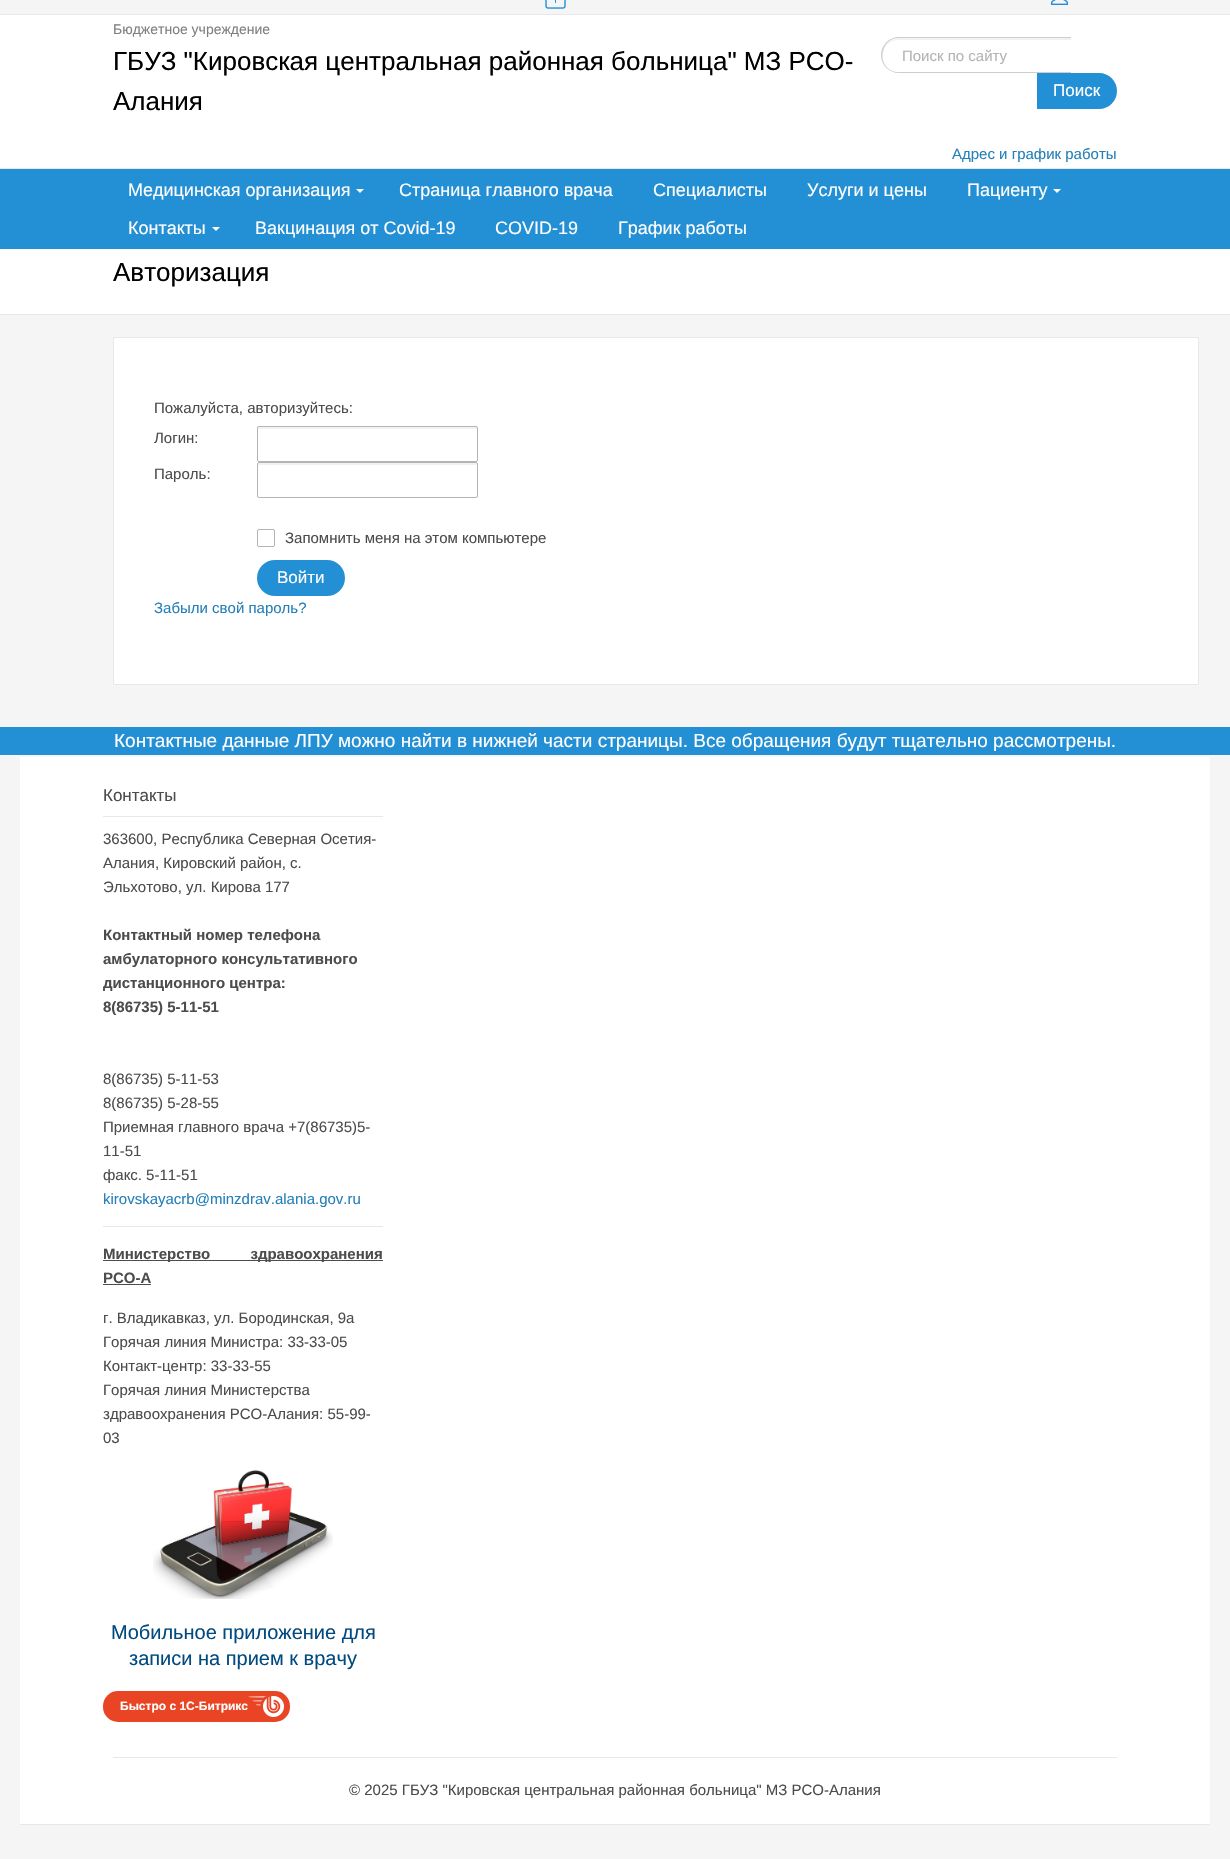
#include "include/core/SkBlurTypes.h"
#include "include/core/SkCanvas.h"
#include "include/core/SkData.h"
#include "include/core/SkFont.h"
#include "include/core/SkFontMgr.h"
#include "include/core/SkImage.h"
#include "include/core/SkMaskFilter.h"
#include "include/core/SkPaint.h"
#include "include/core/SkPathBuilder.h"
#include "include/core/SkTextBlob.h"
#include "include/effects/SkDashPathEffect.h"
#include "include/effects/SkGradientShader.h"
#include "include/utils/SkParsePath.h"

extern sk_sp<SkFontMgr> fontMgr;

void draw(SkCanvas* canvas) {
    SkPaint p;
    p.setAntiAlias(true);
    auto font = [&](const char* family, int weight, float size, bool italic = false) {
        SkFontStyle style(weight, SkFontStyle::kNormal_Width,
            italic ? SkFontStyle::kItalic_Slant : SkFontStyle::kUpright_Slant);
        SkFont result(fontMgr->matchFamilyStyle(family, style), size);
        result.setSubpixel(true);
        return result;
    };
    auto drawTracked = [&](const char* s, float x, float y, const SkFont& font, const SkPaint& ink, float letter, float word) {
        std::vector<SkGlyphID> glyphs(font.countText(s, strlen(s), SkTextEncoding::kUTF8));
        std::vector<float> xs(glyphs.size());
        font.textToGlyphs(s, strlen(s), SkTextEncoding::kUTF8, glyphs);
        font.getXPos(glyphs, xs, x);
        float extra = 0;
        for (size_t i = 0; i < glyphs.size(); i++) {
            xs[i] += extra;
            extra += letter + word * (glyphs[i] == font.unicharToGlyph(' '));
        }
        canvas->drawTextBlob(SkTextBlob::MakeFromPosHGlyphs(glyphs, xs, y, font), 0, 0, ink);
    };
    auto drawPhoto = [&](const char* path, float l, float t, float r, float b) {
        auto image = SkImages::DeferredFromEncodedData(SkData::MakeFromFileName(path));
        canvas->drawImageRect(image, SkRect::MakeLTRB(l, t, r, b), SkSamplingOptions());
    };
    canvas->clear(0xFFF5F5F5);
    p.setColor(0xFFE8E8E8);
    canvas->drawRect(SkRect::MakeLTRB(0, 14, 1230, 15), p);
    drawPhoto("media/1.png", 545, 0, 566, 9);
    drawPhoto("media/2.png", 1051, 0, 1068, 5);
    p.setColor(0xFFFFFFFF);
    canvas->drawRect(SkRect::MakeLTRB(0, 15, 1230, 168), p);
    p.setColor(0xFFE8E8E8);
    canvas->drawRect(SkRect::MakeLTRB(0, 168, 1230, 169), p);
    auto font1 = font("Liberation Sans", 400, 14);
    p.setColor(0xFF808080);
    canvas->drawString("Бюджетное учреждение", 113, 34, font1, p);
    auto font2 = font("Liberation Sans", 400, 26);
    p.setColor(0xFF000000);
    canvas->drawString("ГБУЗ \"Кировская центральная районная больница\" МЗ РСО-", 113, 70, font2, p);
    canvas->drawString("Алания", 113, 110, font2, p);
    p.setColor(0xFFF2F2F2);
    canvas->drawPath(SkPathBuilder().moveTo(899, 40).lineTo(1071, 40).lineTo(1071, 38).lineTo(899, 38).cubicTo(890, 38, 882, 46, 882, 55).lineTo(883, 59).cubicTo(882, 50, 887, 40, 899, 40).close().detach(), p);
    p.setColor(0xFFCECECE);
    canvas->drawPath(SkPathBuilder(SkPathFillType::kEvenOdd).moveTo(899, 37).lineTo(1071, 37).lineTo(1071, 73).lineTo(899, 73).cubicTo(889, 73, 881, 65, 881, 55).cubicTo(881, 45, 889, 37, 899, 37).close().moveTo(899, 38).lineTo(1071, 38).lineTo(1071, 72).lineTo(896, 72).cubicTo(876, 68, 879, 38, 899, 38).close().detach(), p);
    auto font3 = font("Liberation Sans", 400, 15);
    p.setColor(0xFFB4B4B4);
    canvas->drawString("Поиск по сайту", 902, 61, font3, p);
    p.setColor(0xFF238FD4);
    canvas->drawPath(SkPathBuilder().moveTo(1037, 73).lineTo(1099, 73).cubicTo(1109, 73, 1117, 81, 1117, 91).cubicTo(1117, 101, 1109, 109, 1099, 109).lineTo(1037, 109).close().detach(), p);
    auto font4 = font("Liberation Sans", 400, 17);
    p.setColor(0xFFFFFFFF);
    canvas->drawString("Поиск", 1053, 96, font4, p);
    p.setColor(0xFF257FB8);
    canvas->drawString("Адрес и график работы", 952, 159, font3, p);
    p.setColor(0xFF238FD4);
    canvas->drawRect(SkRect::MakeLTRB(0, 169, 1230, 249), p);
    auto font5 = font("Liberation Sans", 400, 18);
    p.setColor(0xFFFFFFFF);
    canvas->drawString("Медицинская организация", 128, 196, font5, p);
    canvas->drawPath(SkPathBuilder().moveTo(356, 189).lineTo(364, 189).lineTo(360, 193).close().detach(), p);
    {
        const struct { const char* s; float x, y; } items[] = {
            {"Страница главного врача", 399, 196},
            {"Специалисты", 653, 196},
            {"Услуги и цены", 807, 196},
            {"Пациенту", 967, 196},
        };
        for (auto [s, x, y] : items) {
            canvas->drawString(s, x, y, font5, p);
        }
    }
    canvas->drawPath(SkPathBuilder().moveTo(1053, 189).lineTo(1061, 189).lineTo(1057, 193).close().detach(), p);
    canvas->drawString("Контакты", 128, 234, font5, p);
    canvas->drawPath(SkPathBuilder().moveTo(212, 227).lineTo(220, 227).lineTo(216, 231).close().detach(), p);
    {
        const struct { const char* s; float x, y; } items[] = {
            {"Вакцинация от Covid-19", 255, 234},
            {"COVID-19", 495, 234},
            {"График работы", 618, 234},
        };
        for (auto [s, x, y] : items) {
            canvas->drawString(s, x, y, font5, p);
        }
    }
    canvas->drawRect(SkRect::MakeLTRB(0, 249, 1230, 314), p);
    p.setColor(0xFFE8E8E8);
    canvas->drawRect(SkRect::MakeLTRB(0, 314, 1230, 315), p);
    p.setColor(0xFF000000);
    canvas->drawString("Авторизация", 113, 281, font2, p);
    p.setColor(0xFFFFFFFF);
    canvas->drawRoundRect(SkRect::MakeLTRB(113.5f, 337.5f, 1198.5f, 684.5f), 1.5f, 1.5f, p);
    p.setStyle(SkPaint::kStroke_Style);
    p.setStrokeWidth(1);
    p.setColor(0xFFE8E8E8);
    canvas->drawRoundRect(SkRect::MakeLTRB(113.5f, 337.5f, 1198.5f, 684.5f), 1.5f, 1.5f, p);
    p.setStyle(SkPaint::kFill_Style);
    p.setColor(0xFF4C4C4C);
    canvas->drawString("Пожалуйста, авторизуйтесь:", 154, 413, font3, p);
    canvas->drawString("Логин:", 154, 443, font3, p);
    p.setColor(0xFFF2F2F2);
    canvas->drawPath(SkPathBuilder().moveTo(259, 429).lineTo(477, 429).lineTo(477, 430).cubicTo(477, 429, 477, 427, 476, 427).lineTo(259, 427).cubicTo(258, 427, 258, 429, 258, 430).cubicTo(258, 429, 258, 429, 259, 429).close().detach(), p);
    p.setStyle(SkPaint::kStroke_Style);
    p.setColor(0xFFB4B4B4);
    canvas->drawRoundRect(SkRect::MakeLTRB(257.5f, 426.5f, 477.5f, 461.5f), 1.5f, 1.5f, p);
    p.setStyle(SkPaint::kFill_Style);
    p.setColor(0xFF4C4C4C);
    canvas->drawString("Пароль:", 154, 479, font3, p);
    p.setColor(0xFFF2F2F2);
    canvas->drawPath(SkPathBuilder().moveTo(259, 465).lineTo(477, 465).lineTo(477, 466).cubicTo(477, 465, 477, 463, 476, 463).lineTo(259, 463).cubicTo(258, 463, 258, 465, 258, 466).cubicTo(258, 465, 258, 465, 259, 465).close().detach(), p);
    p.setStyle(SkPaint::kStroke_Style);
    p.setColor(0xFFB4B4B4);
    canvas->drawRoundRect(SkRect::MakeLTRB(257.5f, 462.5f, 477.5f, 497.5f), 1.5f, 1.5f, p);
    canvas->drawRoundRect(SkRect::MakeLTRB(257.5f, 529.5f, 274.5f, 546.5f), 1.5f, 1.5f, p);
    p.setStyle(SkPaint::kFill_Style);
    p.setColor(0xFF4C4C4C);
    canvas->drawString("Запомнить меня на этом компьютере", 285, 543, font3, p);
    p.setColor(0xFF238FD4);
    canvas->drawRoundRect(SkRect::MakeLTRB(257, 560, 345, 596), 18, 18, p);
    p.setColor(0xFFFFFFFF);
    canvas->drawString("Войти", 277, 583, font4, p);
    p.setColor(0xFF257FB8);
    canvas->drawString("Забыли свой пароль?", 154, 613, font3, p);
    p.setColor(0xFF238FD4);
    canvas->drawRect(SkRect::MakeLTRB(0, 727, 1230, 755), p);
    auto font6 = font("Liberation Sans", 400, 19);
    p.setColor(0xFFFFFFFF);
    canvas->drawString("Контактные данные ЛПУ можно найти в нижней части страницы. Все обращения будут тщательно рассмотрены.", 114, 747, font6, p);
    {
        const struct { float l, t, r, b; SkColor color; } items[] = {
            {20, 757, 1210, 1824, 0xFFFFFFFF},
            {20, 1824, 1210, 1825, 0xFFE8E8E8},
            {103, 816, 383, 817, 0xFFE8E8E8},
        };
        for (auto [l, t, r, b, color] : items) {
            p.setColor(color);
            canvas->drawRect(SkRect::MakeLTRB(l, t, r, b), p);
        }
    }
    p.setColor(0xFF4C4C4C);
    canvas->drawString("Контакты", 103, 801, font4, p);
    {
        const struct { const char* s; float x, y; } items[] = {
            {"363600, Республика Северная Осетия-", 103, 844},
            {"Алания, Кировский район, с.", 103, 868},
            {"Эльхотово, ул. Кирова 177", 103, 892},
        };
        for (auto [s, x, y] : items) {
            canvas->drawString(s, x, y, font3, p);
        }
    }
    auto font7 = font("Liberation Sans", 700, 15);
    {
        const struct { const char* s; float x, y; } items[] = {
            {"Контактный номер телефона", 103, 940},
            {"амбулаторного консультативного", 103, 964},
            {"дистанционного центра:", 103, 988},
            {"8(86735) 5-11-51", 103, 1012},
        };
        for (auto [s, x, y] : items) {
            canvas->drawString(s, x, y, font7, p);
        }
    }
    {
        const struct { const char* s; float x, y; } items[] = {
            {"8(86735) 5-11-53", 103, 1084},
            {"8(86735) 5-28-55", 103, 1108},
            {"Приемная главного врача +7(86735)5-", 103, 1132},
            {"11-51", 103, 1156},
            {"факс. 5-11-51", 103, 1180},
        };
        for (auto [s, x, y] : items) {
            canvas->drawString(s, x, y, font3, p);
        }
    }
    p.setColor(0xFF257FB8);
    canvas->drawString("kirovskayacrb@minzdrav.alania.gov.ru", 103, 1204, font3, p);
    p.setColor(0xFFE8E8E8);
    canvas->drawRect(SkRect::MakeLTRB(103, 1226, 383, 1227), p);
    p.setColor(0xFF4C4C4C);
    canvas->drawRect(SkRect::MakeLTRB(103, 1260, 383, 1261), p);
    drawTracked("Министерство здравоохранения", 103, 1259, font7, p, 0, 36);
    canvas->drawString("РСО-А", 103, 1283, font7, p);
    canvas->drawRect(SkRect::MakeLTRB(103, 1284, 151, 1285), p);
    {
        const struct { const char* s; float x, y; } items[] = {
            {"г. Владикавказ, ул. Бородинская, 9а", 103, 1323},
            {"Горячая линия Министра: 33-33-05", 103, 1347},
            {"Контакт-центр: 33-33-55", 103, 1371},
            {"Горячая линия Министерства", 103, 1395},
            {"здравоохранения РСО-Алания: 55-99-", 103, 1419},
            {"03", 103, 1443},
        };
        for (auto [s, x, y] : items) {
            canvas->drawString(s, x, y, font3, p);
        }
    }
    drawPhoto("media/3.png", 153, 1470, 333, 1599);
    auto font8 = font("Liberation Sans", 400, 20);
    p.setColor(0xFF004A80);
    canvas->drawString("Мобильное приложение для", 111, 1639, font8, p);
    canvas->drawString("записи на прием к врачу", 129, 1665, font8, p);
    p.setColor(0xFFE94524);
    canvas->drawRoundRect(SkRect::MakeLTRB(103, 1691, 290, 1722), 15, 15, p);
    drawPhoto("media/4.png", 248, 1696, 284, 1717);
    auto font9 = font("Liberation Sans", 700, 12);
    p.setColor(0xFFFFFFFF);
    canvas->drawString("Быстро с 1С-Битрикс", 120, 1710, font9, p);
    p.setColor(0xFFE8E8E8);
    canvas->drawRect(SkRect::MakeLTRB(113, 1757, 1117, 1758), p);
    p.setColor(0xFF4C4C4C);
    canvas->drawString("© 2025 ГБУЗ \"Кировская центральная районная больница\" МЗ РСО-Алания", 349, 1795, font3, p);
}
